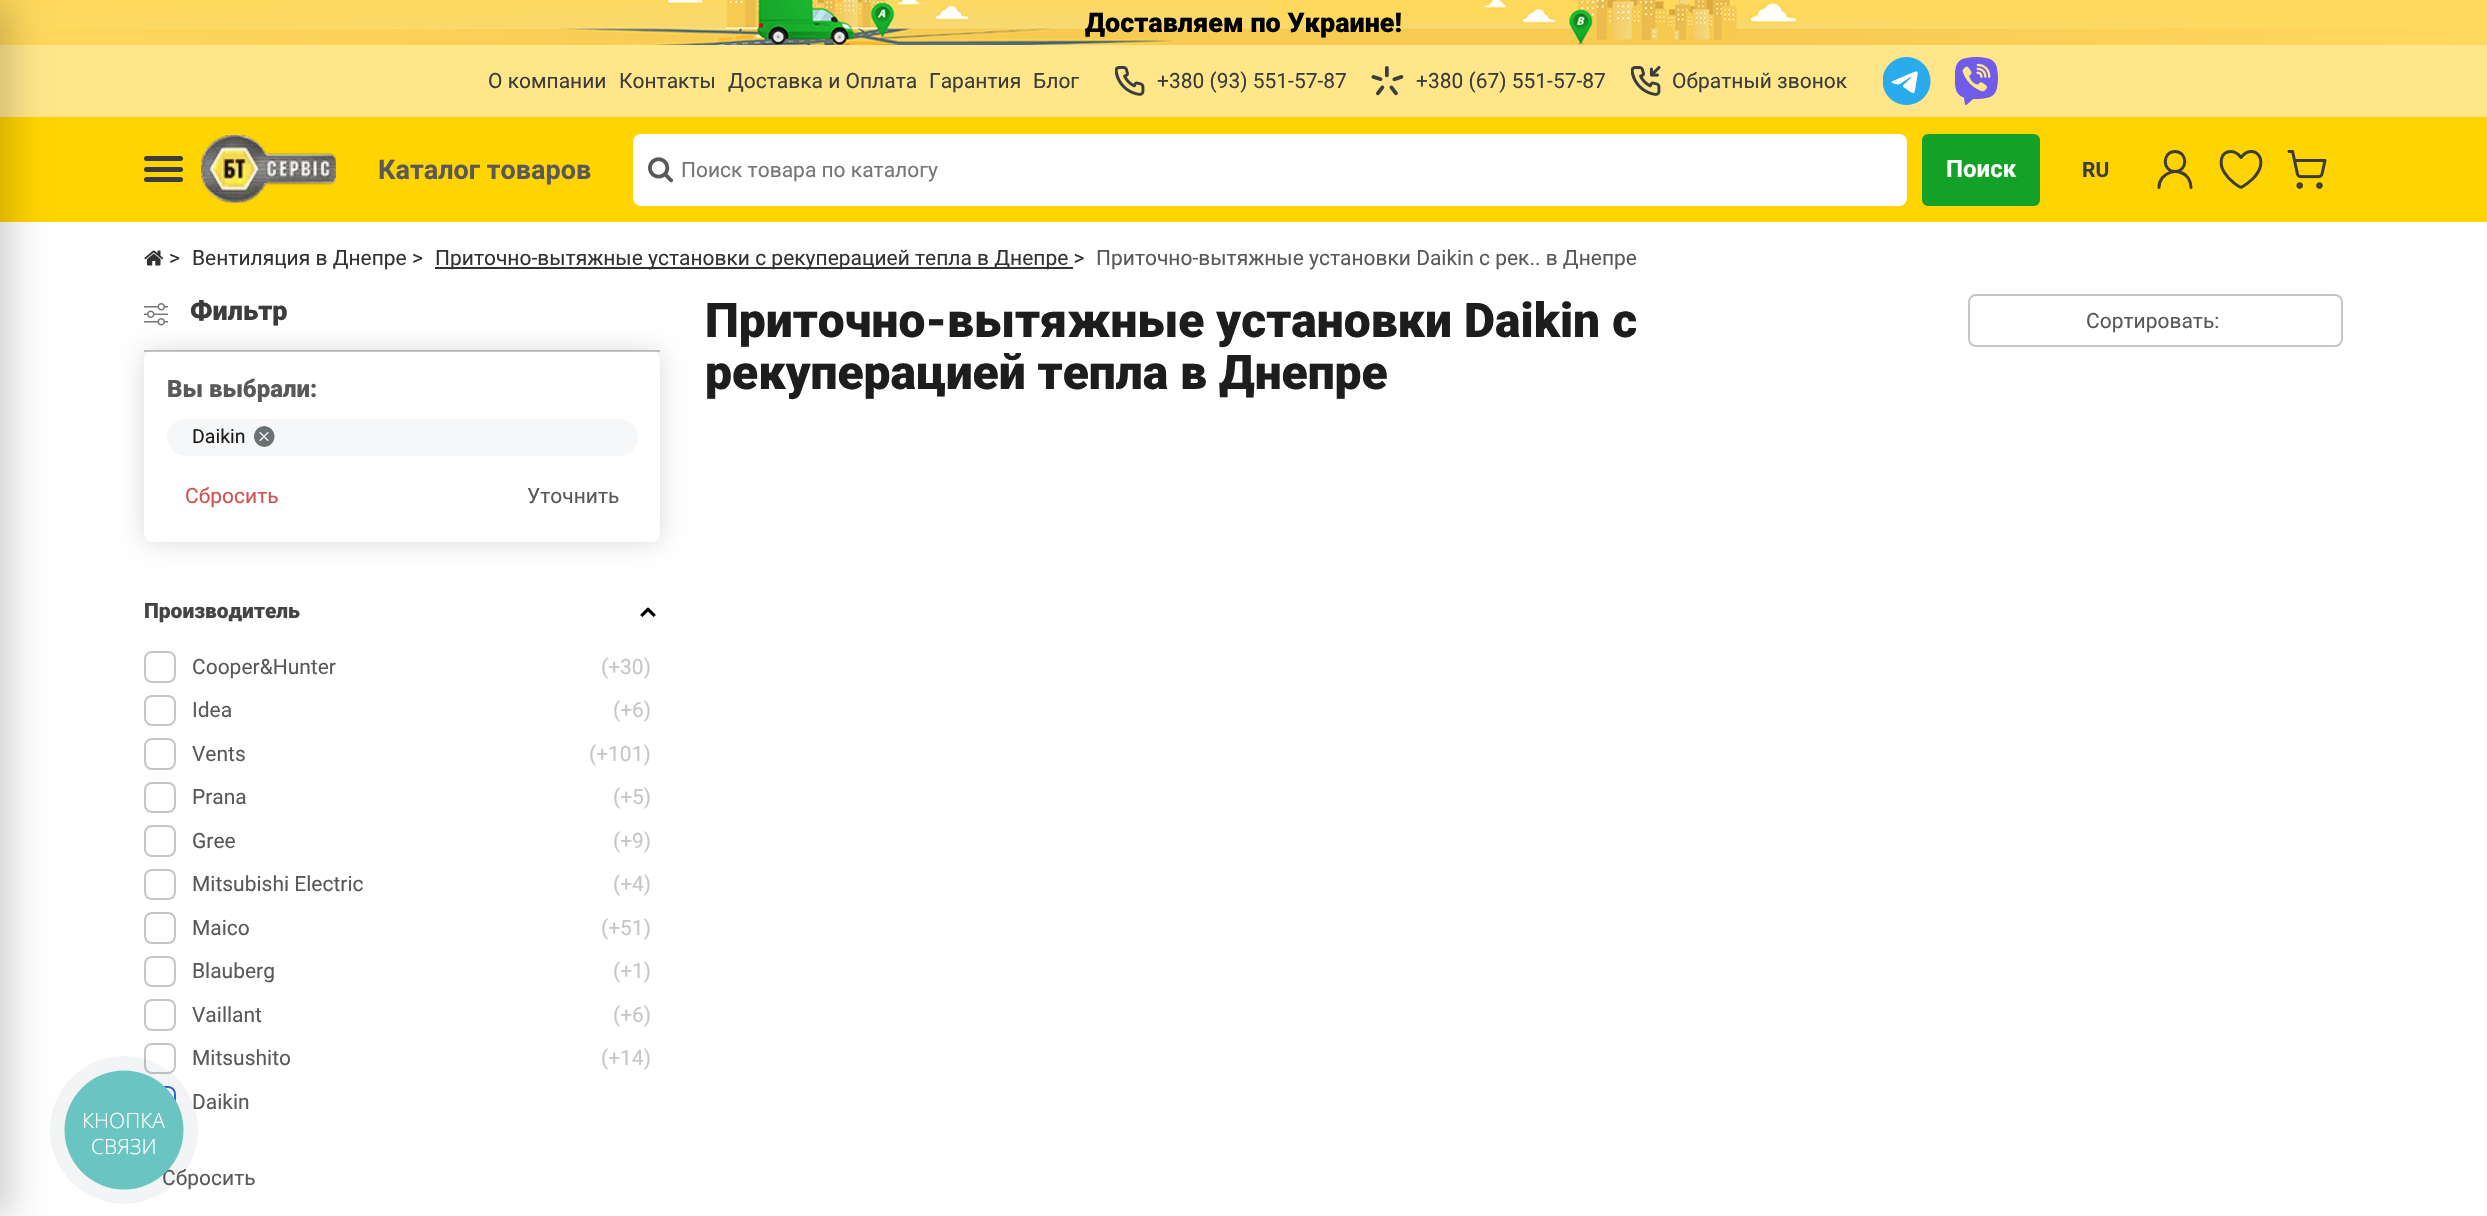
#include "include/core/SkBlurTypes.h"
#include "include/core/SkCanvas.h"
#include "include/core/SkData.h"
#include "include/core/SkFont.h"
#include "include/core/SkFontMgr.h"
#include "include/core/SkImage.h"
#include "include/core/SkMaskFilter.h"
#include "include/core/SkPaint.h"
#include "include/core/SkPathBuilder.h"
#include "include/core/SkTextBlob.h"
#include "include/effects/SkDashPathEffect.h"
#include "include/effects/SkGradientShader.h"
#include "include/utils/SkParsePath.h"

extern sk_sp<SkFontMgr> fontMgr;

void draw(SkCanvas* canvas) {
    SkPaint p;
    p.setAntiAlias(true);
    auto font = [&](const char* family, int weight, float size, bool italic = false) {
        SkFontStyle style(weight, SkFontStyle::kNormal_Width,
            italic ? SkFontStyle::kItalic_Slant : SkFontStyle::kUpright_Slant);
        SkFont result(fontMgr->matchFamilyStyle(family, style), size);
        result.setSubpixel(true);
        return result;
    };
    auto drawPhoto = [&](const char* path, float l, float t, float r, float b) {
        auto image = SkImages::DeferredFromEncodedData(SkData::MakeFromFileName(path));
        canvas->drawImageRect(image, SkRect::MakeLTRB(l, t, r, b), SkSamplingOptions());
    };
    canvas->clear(0xFFFFFFFF);
    drawPhoto("media/1.png", 0, 0, 2487, 45);
    p.setColor(0xFFFFE68B);
    canvas->drawRect(SkRect::MakeLTRB(0, 45, 2487, 117), p);
    p.setColor(0xFFFFD400);
    canvas->drawRect(SkRect::MakeLTRB(0, 117, 2487, 222), p);
    p.setColor(0x2E000000);
    p.setMaskFilter(SkMaskFilter::MakeBlur(kNormal_SkBlurStyle, 18));
    canvas->drawRect(SkRect::MakeLTRB(-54, 0, 12, 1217), p);
    p.setMaskFilter(nullptr);
    auto font1 = font("Roboto", 900, 27);
    p.setColor(0xFF000000);
    canvas->drawString("Доставляем по Украине!", 1085, 32, font1, p);
    auto font2 = font("Roboto", 400, 21);
    p.setColor(0xFF3C3C3C);
    {
        const struct { const char* s; float x, y; } items[] = {
            {"О компании", 488, 88},
            {"Контакты", 619, 88},
            {"Доставка и Оплата", 728, 88},
            {"Гарантия", 929, 88},
            {"Блог", 1033, 88},
        };
        for (auto [s, x, y] : items) {
            canvas->drawString(s, x, y, font2, p);
        }
    }
    drawPhoto("media/2.png", 1115, 66, 1145, 96);
    canvas->drawString("+380 (93) 551-57-87", 1157, 88, font2, p);
    drawPhoto("media/3.png", 1371, 66, 1404, 96);
    canvas->drawString("+380 (67) 551-57-87", 1416, 88, font2, p);
    drawPhoto("media/4.png", 1631, 66, 1661, 96);
    canvas->drawString("Обратный звонок", 1672, 88, font2, p);
    drawPhoto("media/5.png", 1883, 57, 1931, 105);
    drawPhoto("media/6.png", 1955, 57, 1998, 105);
    canvas->drawRoundRect(SkRect::MakeLTRB(144, 156, 183, 161), 2.5f, 2.5f, p);
    canvas->drawRoundRect(SkRect::MakeLTRB(144, 167, 183, 172), 2.5f, 2.5f, p);
    canvas->drawRoundRect(SkRect::MakeLTRB(144, 177, 183, 182), 2.5f, 2.5f, p);
    drawPhoto("media/7.png", 201, 135, 336, 203);
    auto font3 = font("Roboto", 700, 27);
    p.setColor(0xFF595959);
    canvas->drawString("Каталог товаров", 378, 179, font3, p);
    p.setColor(0xFFFFFFFF);
    canvas->drawRoundRect(SkRect::MakeLTRB(633, 134, 1907, 206), 8, 8, p);
    drawPhoto("media/8.png", 648, 157, 673, 183);
    p.setColor(0xFF757575);
    canvas->drawString("Поиск товара по каталогу", 681, 177, font2, p);
    p.setColor(0xFF14A128);
    canvas->drawRoundRect(SkRect::MakeLTRB(1922, 134, 2040, 206), 6, 6, p);
    auto font4 = font("Roboto", 700, 24);
    p.setColor(0xFFFFFFFF);
    canvas->drawString("Поиск", 1946, 177, font4, p);
    auto font5 = font("Roboto", 700, 21);
    p.setColor(0xFF3C3C3C);
    canvas->drawString("RU", 2082, 177, font5, p);
    p.setStyle(SkPaint::kStroke_Style);
    p.setStrokeWidth(3);
    p.setStrokeCap(SkPaint::kRound_Cap);
    p.setStrokeJoin(SkPaint::kRound_Join);
    canvas->drawPath(SkPathBuilder().moveTo(2175, 171.5f).cubicTo(2188, 171.5f, 2188, 151.5f, 2175, 151.5f).cubicTo(2162, 151.5f, 2162, 171.5f, 2175, 171.5f).close().moveTo(2191, 187.5f).cubicTo(2191, 184.5f, 2190, 181, 2188.5f, 178.5f).cubicTo(2179.5f, 165.5f, 2159, 172, 2159, 187.5f).detach(), p);
    canvas->drawPath(SkPathBuilder().moveTo(2231, 151.5f).cubicTo(2219.5f, 151.5f, 2219.5f, 164.5f, 2224, 172).cubicTo(2226.5f, 176, 2230, 180, 2234, 183).cubicTo(2236.5f, 184.5f, 2239, 188, 2242, 187).cubicTo(2244.5f, 185.5f, 2250, 181.5f, 2252.5f, 179).cubicTo(2272, 160, 2253, 141.5f, 2241, 157.5f).cubicTo(2241, 157.5f, 2236.5f, 151.5f, 2231, 151.5f).close().detach(), p);
    drawPhoto("media/9.png", 2287, 150, 2327, 189);
    p.setStrokeWidth(2);
    p.setStrokeCap(SkPaint::kButt_Cap);
    p.setStrokeJoin(SkPaint::kMiter_Join);
    p.setColor(0xFFC6C6C6);
    canvas->drawRoundRect(SkRect::MakeLTRB(145, 1044, 175, 1073), 7, 7, p);
    p.setColor(0xFF3366D5);
    canvas->drawRoundRect(SkRect::MakeLTRB(145, 1087, 175, 1117), 7, 7, p);
    p.setStyle(SkPaint::kFill_Style);
    p.setColor(0xFFFFFFFF);
    p.setMaskFilter(SkMaskFilter::MakeBlur(kNormal_SkBlurStyle, 7.5f));
    canvas->drawRect(SkRect::MakeLTRB(129, 1124, 675, 1202), p);
    p.setMaskFilter(nullptr);
    p.setColor(0x0F2A405D);
    canvas->drawCircle(124, 1130, 74, p);
    p.setColor(0xFF595959);
    canvas->drawString("Сбросить", 162, 1185, font2, p);
    p.setColor(0xFF6AC4C1);
    canvas->drawCircle(124, 1130, 59.5f, p);
    auto font6 = font("Open Sans", 300, 21);
    p.setColor(0xFFFFFFFF);
    canvas->drawString("КНОПКА", 82, 1128, font6, p);
    canvas->drawString("СВЯЗИ", 91, 1154, font6, p);
    drawPhoto("media/10.png", 144, 250, 164, 266);
    p.setColor(0xFF333333);
    canvas->drawString(">", 169, 265, font2, p);
    canvas->drawString("Вентиляция в Днепре >", 192, 265, font2, p);
    canvas->drawRect(SkRect::MakeLTRB(435, 267, 1073, 269), p);
    canvas->drawString("Приточно-вытяжные установки с рекуперацией тепла в Днепре >", 435, 265, font2, p);
    p.setColor(0xFF595959);
    canvas->drawString("Приточно-вытяжные установки Daikin с рек.. в Днепре", 1096, 265, font2, p);
    p.setColor(0xFFC6C6C6);
    canvas->drawRect(SkRect::MakeLTRB(144, 350, 660, 352), p);
    canvas->save();
    canvas->clipPath(SkPathBuilder(SkPathFillType::kEvenOdd).moveTo(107, 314).lineTo(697, 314).lineTo(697, 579).lineTo(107, 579).close().moveTo(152, 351).lineTo(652, 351).cubicTo(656.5f, 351, 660, 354.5f, 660, 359).lineTo(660, 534).cubicTo(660, 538.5f, 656.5f, 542, 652, 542).lineTo(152, 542).cubicTo(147.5f, 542, 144, 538.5f, 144, 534).lineTo(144, 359).cubicTo(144, 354.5f, 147.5f, 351, 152, 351).close().detach(), true);
    p.setColor(0x26000000);
    p.setMaskFilter(SkMaskFilter::MakeBlur(kNormal_SkBlurStyle, 12));
    canvas->drawRoundRect(SkRect::MakeLTRB(144, 351, 660, 542), 8, 8, p);
    p.setMaskFilter(nullptr);
    canvas->restore();
    drawPhoto("media/11.png", 144, 303, 168, 326);
    p.setColor(0xFF3C3C3C);
    canvas->drawString("Фильтр", 190, 320, font1, p);
    auto font7 = font("Roboto", 900, 24);
    p.setColor(0xFF595959);
    canvas->drawString("Вы выбрали:", 167, 397, font7, p);
    p.setColor(0xFFF5F7F9);
    canvas->drawRoundRect(SkRect::MakeLTRB(167, 419, 638, 456), 18.5f, 18.5f, p);
    auto font8 = font("Roboto", 400, 19.5f);
    p.setColor(0xFF1D1D1D);
    canvas->drawString("Daikin", 192, 443, font8, p);
    drawPhoto("media/12.png", 254, 426, 275, 447);
    p.setColor(0xFFD1524C);
    canvas->drawString("Сбросить", 185, 503, font2, p);
    p.setColor(0xFF595959);
    canvas->drawString("Уточнить", 527, 503, font2, p);
    auto font9 = font("Roboto", 900, 21);
    p.setColor(0xFF444444);
    canvas->drawString("Производитель", 144, 618, font9, p);
    p.setColor(0xFF000000);
    canvas->drawPath(SkPathBuilder().moveTo(653.5f, 617).lineTo(656, 615).lineTo(648.5f, 607.5f).lineTo(646, 609.5f).close().detach(), p);
    canvas->drawPath(SkPathBuilder().moveTo(640, 615).lineTo(642.5f, 617).lineTo(650, 609.5f).lineTo(647.5f, 607.5f).close().detach(), p);
    p.setStyle(SkPaint::kStroke_Style);
    p.setColor(0xFFC6C6C6);
    canvas->drawRoundRect(SkRect::MakeLTRB(145, 652, 175, 682), 7, 7, p);
    p.setStyle(SkPaint::kFill_Style);
    p.setColor(0xFF595959);
    canvas->drawString("Cooper&Hunter", 192, 674, font2, p);
    p.setColor(0xFFC6C6C6);
    canvas->drawString("(+30)", 601, 674, font2, p);
    p.setStyle(SkPaint::kStroke_Style);
    canvas->drawRoundRect(SkRect::MakeLTRB(145, 696, 175, 725), 7, 7, p);
    p.setStyle(SkPaint::kFill_Style);
    p.setColor(0xFF595959);
    canvas->drawString("Idea", 192, 717, font2, p);
    p.setColor(0xFFC6C6C6);
    canvas->drawString("(+6)", 613, 717, font2, p);
    p.setStyle(SkPaint::kStroke_Style);
    canvas->drawRoundRect(SkRect::MakeLTRB(145, 739, 175, 769), 7, 7, p);
    p.setStyle(SkPaint::kFill_Style);
    p.setColor(0xFF595959);
    canvas->drawString("Vents", 192, 761, font2, p);
    p.setColor(0xFFC6C6C6);
    canvas->drawString("(+101)", 589, 761, font2, p);
    p.setStyle(SkPaint::kStroke_Style);
    canvas->drawRoundRect(SkRect::MakeLTRB(145, 783, 175, 812), 7, 7, p);
    p.setStyle(SkPaint::kFill_Style);
    p.setColor(0xFF595959);
    canvas->drawString("Prana", 192, 804, font2, p);
    p.setColor(0xFFC6C6C6);
    canvas->drawString("(+5)", 613, 804, font2, p);
    p.setStyle(SkPaint::kStroke_Style);
    canvas->drawRoundRect(SkRect::MakeLTRB(145, 826, 175, 856), 7, 7, p);
    p.setStyle(SkPaint::kFill_Style);
    p.setColor(0xFF595959);
    canvas->drawString("Gree", 192, 848, font2, p);
    p.setColor(0xFFC6C6C6);
    canvas->drawString("(+9)", 613, 848, font2, p);
    p.setStyle(SkPaint::kStroke_Style);
    canvas->drawRoundRect(SkRect::MakeLTRB(145, 870, 175, 899), 7, 7, p);
    p.setStyle(SkPaint::kFill_Style);
    p.setColor(0xFF595959);
    canvas->drawString("Mitsubishi Electric", 192, 891, font2, p);
    p.setColor(0xFFC6C6C6);
    canvas->drawString("(+4)", 613, 891, font2, p);
    p.setStyle(SkPaint::kStroke_Style);
    canvas->drawRoundRect(SkRect::MakeLTRB(145, 913, 175, 943), 7, 7, p);
    p.setStyle(SkPaint::kFill_Style);
    p.setColor(0xFF595959);
    canvas->drawString("Maico", 192, 935, font2, p);
    p.setColor(0xFFC6C6C6);
    canvas->drawString("(+51)", 601, 935, font2, p);
    p.setStyle(SkPaint::kStroke_Style);
    canvas->drawRoundRect(SkRect::MakeLTRB(145, 957, 175, 986), 7, 7, p);
    p.setStyle(SkPaint::kFill_Style);
    p.setColor(0xFF595959);
    canvas->drawString("Blauberg", 192, 978, font2, p);
    p.setColor(0xFFC6C6C6);
    canvas->drawString("(+1)", 613, 978, font2, p);
    p.setStyle(SkPaint::kStroke_Style);
    canvas->drawRoundRect(SkRect::MakeLTRB(145, 1000, 175, 1030), 7, 7, p);
    p.setStyle(SkPaint::kFill_Style);
    p.setColor(0xFF595959);
    canvas->drawString("Vaillant", 192, 1022, font2, p);
    p.setColor(0xFFC6C6C6);
    canvas->drawString("(+6)", 613, 1022, font2, p);
    p.setColor(0xFF595959);
    canvas->drawString("Mitsushito", 192, 1065, font2, p);
    p.setColor(0xFFC6C6C6);
    canvas->drawString("(+14)", 601, 1065, font2, p);
    p.setColor(0xFF595959);
    canvas->drawString("Daikin", 192, 1109, font2, p);
    auto font10 = font("Roboto", 900, 48);
    p.setColor(0xFF1D1D1D);
    canvas->drawString("Приточно-вытяжные установки Daikin с", 705, 337, font10, p);
    canvas->drawString("рекуперацией тепла в Днепре", 705, 389, font10, p);
    p.setStyle(SkPaint::kStroke_Style);
    p.setColor(0xFFC6C6C6);
    canvas->drawRoundRect(SkRect::MakeLTRB(1969, 295, 2342, 346), 7, 7, p);
    p.setStyle(SkPaint::kFill_Style);
    p.setColor(0xFF595959);
    canvas->drawString("Сортировать:", 2086, 328, font2, p);
}
